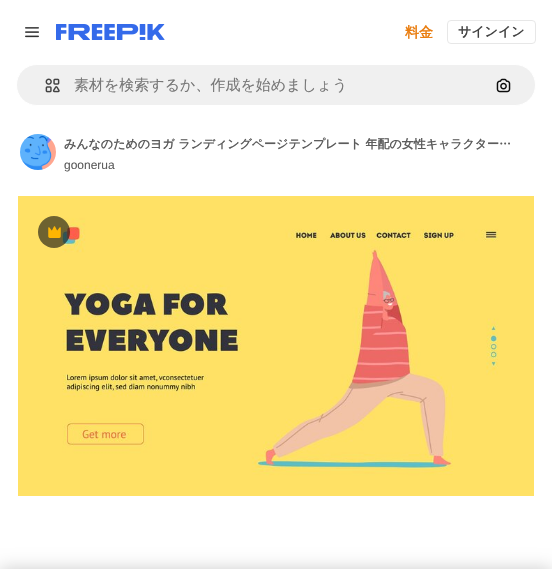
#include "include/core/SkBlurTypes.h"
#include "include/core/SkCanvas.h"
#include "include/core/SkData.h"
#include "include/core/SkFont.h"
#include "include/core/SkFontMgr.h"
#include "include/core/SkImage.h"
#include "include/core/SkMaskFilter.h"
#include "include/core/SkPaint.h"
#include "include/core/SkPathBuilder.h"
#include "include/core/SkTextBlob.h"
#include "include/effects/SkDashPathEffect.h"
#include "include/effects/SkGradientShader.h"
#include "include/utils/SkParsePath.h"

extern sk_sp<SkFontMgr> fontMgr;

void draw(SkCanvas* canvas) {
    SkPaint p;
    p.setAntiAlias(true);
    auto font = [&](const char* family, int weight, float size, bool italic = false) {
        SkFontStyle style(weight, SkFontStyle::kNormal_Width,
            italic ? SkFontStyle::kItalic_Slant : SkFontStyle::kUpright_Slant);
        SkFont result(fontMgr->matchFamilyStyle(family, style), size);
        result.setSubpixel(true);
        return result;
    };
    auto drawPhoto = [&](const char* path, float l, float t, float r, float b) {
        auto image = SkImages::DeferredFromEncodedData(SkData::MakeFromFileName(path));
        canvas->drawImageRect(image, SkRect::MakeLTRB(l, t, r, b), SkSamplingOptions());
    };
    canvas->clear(0xFFFFFFFF);
    drawPhoto("media/1.png", 25, 27, 39, 38);
    drawPhoto("media/2.png", 56, 24, 165, 40);
    auto font1 = font("WenQuanYi Zen Hei", 700, 14);
    p.setColor(0xFFEA7E11);
    canvas->drawString("料金", 405, 37, font1, p);
    p.setStyle(SkPaint::kStroke_Style);
    p.setStrokeWidth(1);
    p.setColor(0xFFE7E7E7);
    canvas->drawRoundRect(SkRect::MakeLTRB(447.5f, 20.5f, 535.5f, 43.5f), 3.5f, 3.5f, p);
    auto font2 = font("WenQuanYi Zen Hei", 700, 13);
    p.setStyle(SkPaint::kFill_Style);
    p.setColor(0xFF424242);
    canvas->drawString("サインイン", 458, 36, font2, p);
    p.setColor(0xFFF0F0F0);
    canvas->drawRoundRect(SkRect::MakeLTRB(16.5f, 64.5f, 535.5f, 105.5f), 20.5f, 20.5f, p);
    p.setStyle(SkPaint::kStroke_Style);
    p.setColor(0xFFFFFFFF);
    canvas->drawRoundRect(SkRect::MakeLTRB(16.5f, 64.5f, 535.5f, 105.5f), 20.5f, 20.5f, p);
    drawPhoto("media/3.png", 45, 78, 60, 93);
    auto font3 = font("WenQuanYi Zen Hei", 500, 15);
    p.setStyle(SkPaint::kFill_Style);
    p.setColor(0xFF777777);
    canvas->drawString("素材を検索するか、作成を始めましょう", 74, 90, font3, p);
    drawPhoto("media/4.png", 496, 78, 511, 93);
    drawPhoto("media/5.png", 20, 134, 56, 170);
    auto font4 = font("WenQuanYi Zen Hei", 700, 12);
    p.setColor(0xFF5C5C5C);
    canvas->drawString("みんなのためのヨガ ランディングページテンプレート 年配の女性キャラクター…", 64, 148, font4, p);
    auto font5 = font("Liberation Sans", 400, 12);
    canvas->drawString("goonerua", 64, 169, font5, p);
    drawPhoto("media/6.png", 18, 196, 534, 496);
    p.setColor(0x990D0D0D);
    canvas->drawCircle(54, 232, 16, p);
    drawPhoto("media/7.png", 48, 226, 61, 238);
    p.setColor(0x33000000);
    p.setMaskFilter(SkMaskFilter::MakeBlur(kNormal_SkBlurStyle, 9));
    canvas->drawRect(SkRect::MakeLTRB(0, 569, 552, 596), p);
    p.setMaskFilter(nullptr);
}
